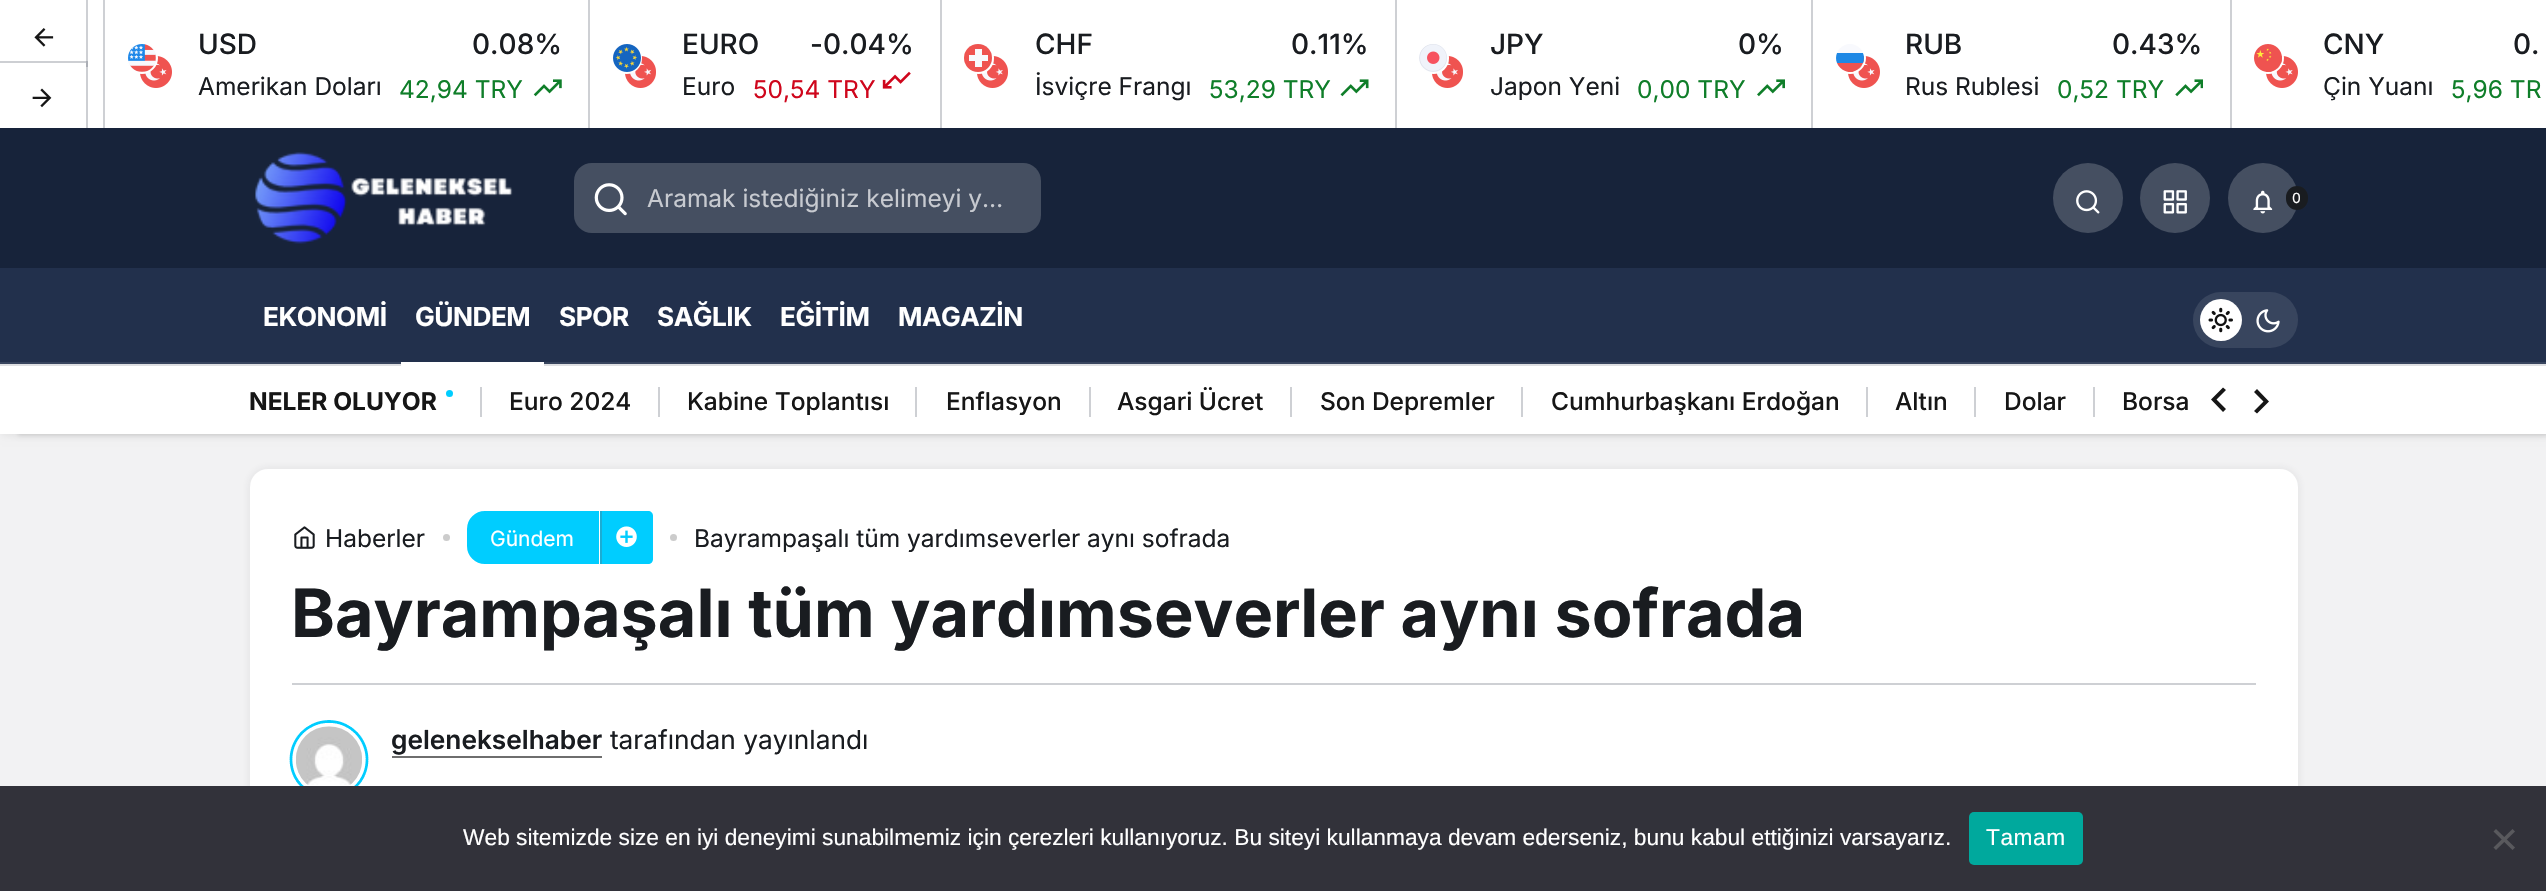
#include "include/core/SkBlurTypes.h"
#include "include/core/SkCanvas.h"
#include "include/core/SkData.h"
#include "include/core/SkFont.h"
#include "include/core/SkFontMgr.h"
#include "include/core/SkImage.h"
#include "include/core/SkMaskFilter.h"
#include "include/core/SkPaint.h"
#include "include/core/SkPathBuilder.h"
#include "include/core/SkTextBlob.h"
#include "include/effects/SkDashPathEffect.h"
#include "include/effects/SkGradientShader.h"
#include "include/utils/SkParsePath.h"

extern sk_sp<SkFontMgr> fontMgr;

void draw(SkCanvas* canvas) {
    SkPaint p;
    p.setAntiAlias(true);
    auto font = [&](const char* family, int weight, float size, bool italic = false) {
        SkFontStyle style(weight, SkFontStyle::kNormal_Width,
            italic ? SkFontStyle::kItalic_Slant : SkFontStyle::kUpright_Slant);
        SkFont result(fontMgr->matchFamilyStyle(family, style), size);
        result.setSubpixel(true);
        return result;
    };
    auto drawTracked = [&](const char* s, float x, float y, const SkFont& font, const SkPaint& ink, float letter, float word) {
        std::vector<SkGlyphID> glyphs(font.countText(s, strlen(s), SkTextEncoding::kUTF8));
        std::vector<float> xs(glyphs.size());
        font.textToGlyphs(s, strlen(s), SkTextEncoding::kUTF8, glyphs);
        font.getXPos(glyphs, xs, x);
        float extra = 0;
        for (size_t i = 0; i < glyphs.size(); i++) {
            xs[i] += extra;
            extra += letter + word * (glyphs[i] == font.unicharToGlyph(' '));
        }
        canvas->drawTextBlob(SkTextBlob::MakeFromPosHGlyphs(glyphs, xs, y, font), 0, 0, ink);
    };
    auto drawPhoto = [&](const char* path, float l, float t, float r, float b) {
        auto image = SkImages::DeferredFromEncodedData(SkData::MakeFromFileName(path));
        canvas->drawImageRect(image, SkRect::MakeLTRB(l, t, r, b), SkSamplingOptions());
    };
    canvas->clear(0xFFF2F2F3);
    p.setColor(0xFFFFFFFF);
    canvas->drawRect(SkRect::MakeLTRB(0, 0, 2546, 128), p);
    p.setColor(0xFFCED0D4);
    canvas->drawRect(SkRect::MakeLTRB(86, 0, 88, 67), p);
    drawPhoto("media/1.png", 34, 28, 54, 47);
    canvas->drawRect(SkRect::MakeLTRB(103, 0, 105, 128), p);
    canvas->drawRect(SkRect::MakeLTRB(588, 0, 590, 128), p);
    drawPhoto("media/3.png", 140, 56, 172, 88);
    p.setColor(0xFFF0F3FA);
    canvas->drawCircle(142, 58, 15, p);
    p.setStyle(SkPaint::kStroke_Style);
    p.setStrokeWidth(2);
    p.setColor(0xFFFFFFFF);
    canvas->drawCircle(142, 58, 15, p);
    drawPhoto("media/2.png", 128, 44, 156, 72);
    auto font1 = font("Inter", 500, 28);
    p.setStyle(SkPaint::kFill_Style);
    p.setColor(0xFF191C20);
    canvas->drawString("USD", 198, 54, font1, p);
    canvas->drawString("0.08%", 472, 54, font1, p);
    auto font2 = font("Inter", 400, 24.5f);
    canvas->drawString("Amerikan Doları", 198, 95, font2, p);
    p.setColor(0xFF0F7E29);
    canvas->drawString("42,94 TRY", 399, 98, font2, p);
    drawPhoto("media/4.png", 533, 79, 562, 97);
    p.setColor(0xFFCED0D4);
    canvas->drawRect(SkRect::MakeLTRB(940, 0, 942, 128), p);
    drawPhoto("media/6.png", 625, 56, 656, 88);
    p.setColor(0xFFF0F3FA);
    canvas->drawRoundRect(SkRect::MakeLTRB(612, 43, 641, 73), 14.5f, 14.5f, p);
    p.setStyle(SkPaint::kStroke_Style);
    p.setColor(0xFFFFFFFF);
    canvas->drawRoundRect(SkRect::MakeLTRB(612, 43, 641, 73), 14.5f, 14.5f, p);
    drawPhoto("media/5.png", 613, 44, 641, 72);
    p.setStyle(SkPaint::kFill_Style);
    p.setColor(0xFF191C20);
    canvas->drawString("EURO", 682, 54, font1, p);
    canvas->drawString("-0.04%", 810, 54, font1, p);
    canvas->drawString("Euro", 682, 95, font2, p);
    p.setColor(0xFFCF061C);
    canvas->drawString("50,54 TRY", 753, 98, font2, p);
    drawPhoto("media/7.png", 882, 71, 911, 89);
    p.setColor(0xFFCED0D4);
    canvas->drawRect(SkRect::MakeLTRB(1395, 0, 1397, 128), p);
    drawPhoto("media/8.png", 977, 56, 1008, 88);
    p.setColor(0xFFF0F3FA);
    canvas->drawRoundRect(SkRect::MakeLTRB(964, 43, 993, 73), 14.5f, 14.5f, p);
    p.setStyle(SkPaint::kStroke_Style);
    p.setColor(0xFFFFFFFF);
    canvas->drawRoundRect(SkRect::MakeLTRB(964, 43, 993, 73), 14.5f, 14.5f, p);
    p.setStyle(SkPaint::kFill_Style);
    p.setColor(0xFFEF5350);
    canvas->drawCircle(978, 58, 14, p);
    p.setColor(0xFFF8F9FD);
    canvas->drawRect(SkRect::MakeLTRB(969, 55, 988, 61), p);
    canvas->drawRect(SkRect::MakeLTRB(975, 49, 982, 67), p);
    p.setColor(0xFF191C20);
    canvas->drawString("CHF", 1035, 54, font1, p);
    canvas->drawString("0.11%", 1291, 54, font1, p);
    canvas->drawString("İsviçre Frangı", 1035, 95, font2, p);
    p.setColor(0xFF0F7E29);
    canvas->drawString("53,29 TRY", 1209, 98, font2, p);
    drawPhoto("media/9.png", 1340, 79, 1369, 97);
    p.setColor(0xFFCED0D4);
    canvas->drawRect(SkRect::MakeLTRB(1811, 0, 1813, 128), p);
    drawPhoto("media/8.png", 1432, 56, 1463, 88);
    p.setColor(0xFFF0F3FA);
    canvas->drawRoundRect(SkRect::MakeLTRB(1419, 43, 1448, 73), 14.5f, 14.5f, p);
    p.setStyle(SkPaint::kStroke_Style);
    p.setColor(0xFFFFFFFF);
    canvas->drawRoundRect(SkRect::MakeLTRB(1419, 43, 1448, 73), 14.5f, 14.5f, p);
    drawPhoto("media/10.png", 1419, 44, 1447, 72);
    p.setStyle(SkPaint::kFill_Style);
    p.setColor(0xFF191C20);
    canvas->drawString("JPY", 1490, 54, font1, p);
    canvas->drawString("0%", 1738, 54, font1, p);
    canvas->drawString("Japon Yeni", 1490, 95, font2, p);
    p.setColor(0xFF0F7E29);
    canvas->drawString("0,00 TRY", 1637, 98, font2, p);
    drawPhoto("media/11.png", 1757, 79, 1785, 97);
    p.setColor(0xFFCED0D4);
    canvas->drawRect(SkRect::MakeLTRB(2230, 0, 2232, 128), p);
    drawPhoto("media/3.png", 1848, 56, 1880, 88);
    p.setStyle(SkPaint::kStroke_Style);
    p.setColor(0xFFFFFFFF);
    canvas->drawCircle(1850, 58, 15, p);
    canvas->save();
    canvas->clipPath(SkPathBuilder().moveTo(1850, 44).cubicTo(1857.5f, 44, 1864, 50.5f, 1864, 58).cubicTo(1864, 65.5f, 1857.5f, 72, 1850, 72).cubicTo(1842.5f, 72, 1836, 65.5f, 1836, 58).cubicTo(1836, 50.5f, 1842.5f, 44, 1850, 44).close().detach(), true);
    p.setStyle(SkPaint::kFill_Style);
    {
        const struct { float l, t, r, b; SkColor color; } items[] = {
            {1837, 44, 1863, 53, 0xFFF8F9FD},
            {1836, 53, 1864, 63, 0xFF1E88E5},
            {1837, 63, 1863, 72, 0xFFEF5350},
        };
        for (auto [l, t, r, b, color] : items) {
            p.setColor(color);
            canvas->drawRect(SkRect::MakeLTRB(l, t, r, b), p);
        }
    }
    canvas->restore();
    p.setColor(0xFF191C20);
    canvas->drawString("RUB", 1905, 54, font1, p);
    canvas->drawString("0.43%", 2112, 54, font1, p);
    canvas->drawString("Rus Rublesi", 1905, 95, font2, p);
    p.setColor(0xFF0F7E29);
    canvas->drawString("0,52 TRY", 2057, 98, font2, p);
    drawPhoto("media/12.png", 2175, 79, 2203, 97);
    drawPhoto("media/14.png", 2266, 56, 2298, 88);
    p.setStyle(SkPaint::kStroke_Style);
    p.setColor(0xFFFFFFFF);
    canvas->drawCircle(2268, 58, 15, p);
    drawPhoto("media/13.png", 2254, 44, 2282, 72);
    p.setStyle(SkPaint::kFill_Style);
    p.setColor(0xFF191C20);
    canvas->drawString("CNY", 2323, 54, font1, p);
    canvas->drawString("0.", 2513, 54, font1, p);
    canvas->drawString("Çin Yuanı", 2323, 95, font2, p);
    p.setColor(0xFF0F7E29);
    canvas->drawString("5,96 TR", 2451, 98, font2, p);
    p.setColor(0x4D5B616E);
    canvas->drawPath(SkPathBuilder().moveTo(0, 61).lineTo(88, 61).lineTo(86, 63).lineTo(0, 63).close().detach(), p);
    canvas->drawPath(SkPathBuilder().moveTo(88, 61).lineTo(88, 128).lineTo(86, 128).lineTo(86, 63).close().detach(), p);
    drawPhoto("media/15.png", 32, 88, 52, 108);
    p.setColor(0xFF17233A);
    canvas->drawRect(SkRect::MakeLTRB(0, 128, 2546, 268), p);
    drawPhoto("media/16.png", 255, 152, 513, 244);
    p.setColor(0xFF454F61);
    canvas->drawRoundRect(SkRect::MakeLTRB(574, 163, 1041, 233), 18, 18, p);
    drawPhoto("media/17.png", 594, 183, 627, 216);
    p.setColor(0xFFC7CAD0);
    canvas->drawString("Aramak istediğiniz kelimeyi y…", 647, 207, font2, p);
    p.setColor(0xFF454F61);
    canvas->drawCircle(2088, 198, 35, p);
    drawPhoto("media/18.png", 2076, 190, 2100, 214);
    canvas->drawCircle(2175, 198, 35, p);
    drawPhoto("media/19.png", 2163, 190, 2187, 214);
    canvas->drawCircle(2263, 198, 35, p);
    drawPhoto("media/20.png", 2253, 190, 2273, 214);
    p.setColor(0xFF191C20);
    canvas->drawRoundRect(SkRect::MakeLTRB(2286, 186, 2308, 210), 11, 11, p);
    auto font3 = font("Inter", 400, 14);
    p.setColor(0xFFFFFFFF);
    canvas->drawString("0", 2292, 203, font3, p);
    p.setColor(0x1A000000);
    p.setMaskFilter(SkMaskFilter::MakeBlur(kNormal_SkBlurStyle, 2));
    canvas->drawRect(SkRect::MakeLTRB(18, 366, 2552, 436), p);
    p.setMaskFilter(nullptr);
    p.setMaskFilter(SkMaskFilter::MakeBlur(kNormal_SkBlurStyle, 4.5f));
    canvas->drawRect(SkRect::MakeLTRB(2, 364, 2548, 434), p);
    p.setMaskFilter(nullptr);
    p.setColor(0xFF22304C);
    canvas->drawRect(SkRect::MakeLTRB(0, 268, 2546, 362), p);
    auto font4 = font("Inter", 700, 26.25f);
    p.setColor(0xFFFFFFFF);
    drawTracked("EKONOMİ", 263, 326, font4, p, -0.5f, 0);
    drawTracked("GÜNDEM", 415, 326, font4, p, -0.5f, 0);
    {
        const struct { float l, t, r, b; SkColor color; } items[] = {
            {0, 362, 2546, 364, 0xFF38455E},
            {0, 364, 2546, 366, 0xFFDEDFE2},
            {401, 362, 544, 366, 0xFFFFFFFF},
        };
        for (auto [l, t, r, b, color] : items) {
            p.setColor(color);
            canvas->drawRect(SkRect::MakeLTRB(l, t, r, b), p);
        }
    }
    {
        const struct { const char* s; float x, y; } items[] = {
            {"SPOR", 559, 326},
            {"SAĞLIK", 657, 326},
            {"EĞİTİM", 780, 326},
            {"MAGAZİN", 898, 326},
        };
        for (auto [s, x, y] : items) {
            drawTracked(s, x, y, font4, p, -0.5f, 0);
        }
    }
    p.setColor(0xFF38455E);
    canvas->drawRoundRect(SkRect::MakeLTRB(2193, 292, 2298, 348), 28, 28, p);
    p.setColor(0xFFFFFFFF);
    canvas->drawCircle(2221, 320, 21, p);
    drawPhoto("media/21.png", 2208, 307, 2233, 333);
    drawPhoto("media/22.png", 2256, 309, 2280, 333);
    canvas->drawRect(SkRect::MakeLTRB(0, 366, 2546, 434), p);
    auto font5 = font("Inter", 700, 24.5f);
    p.setColor(0xFF161616);
    canvas->drawString("NELER OLUYOR", 249, 410, font5, p);
    p.setColor(0xFFCED0D4);
    canvas->drawRect(SkRect::MakeLTRB(480, 387, 482, 417), p);
    p.setColor(0xFF00CDFF);
    canvas->drawCircle(449.5f, 393.5f, 3.5f, p);
    auto font6 = font("Inter", 500, 24.5f);
    p.setColor(0xFF161616);
    canvas->drawString("Euro 2024", 509, 410, font6, p);
    p.setColor(0xFFCED0D4);
    canvas->drawRect(SkRect::MakeLTRB(658, 387, 660, 417), p);
    p.setColor(0xFF161616);
    canvas->drawString("Kabine Toplantısı", 687, 410, font6, p);
    p.setColor(0xFFCED0D4);
    canvas->drawRect(SkRect::MakeLTRB(915, 387, 917, 417), p);
    p.setColor(0xFF161616);
    canvas->drawString("Enflasyon", 946, 410, font6, p);
    p.setColor(0xFFCED0D4);
    canvas->drawRect(SkRect::MakeLTRB(1089, 387, 1091, 417), p);
    p.setColor(0xFF161616);
    canvas->drawString("Asgari Ücret", 1117, 410, font6, p);
    p.setColor(0xFFCED0D4);
    canvas->drawRect(SkRect::MakeLTRB(1290, 387, 1292, 417), p);
    p.setColor(0xFF161616);
    canvas->drawString("Son Depremler", 1320, 410, font6, p);
    p.setColor(0xFFCED0D4);
    canvas->drawRect(SkRect::MakeLTRB(1521, 387, 1523, 417), p);
    p.setColor(0xFF161616);
    canvas->drawString("Cumhurbaşkanı Erdoğan", 1551, 410, font6, p);
    p.setColor(0xFFCED0D4);
    canvas->drawRect(SkRect::MakeLTRB(1866, 387, 1868, 417), p);
    p.setColor(0xFF161616);
    canvas->drawString("Altın", 1895, 410, font6, p);
    p.setColor(0xFFCED0D4);
    canvas->drawRect(SkRect::MakeLTRB(1974, 387, 1976, 417), p);
    p.setColor(0xFF161616);
    canvas->drawString("Dolar", 2004, 410, font6, p);
    p.setColor(0xFFCED0D4);
    canvas->drawRect(SkRect::MakeLTRB(2093, 387, 2095, 417), p);
    p.setColor(0xFF161616);
    canvas->drawString("Borsa", 2122, 410, font6, p);
    canvas->drawPath(SkPathBuilder().moveTo(2226, 409).lineTo(2223, 412).lineTo(2211, 399.5f).lineTo(2223, 387.5f).lineTo(2226, 390).lineTo(2216.5f, 399.5f).close().moveTo(2254, 392).lineTo(2257, 389).lineTo(2269, 401.5f).lineTo(2257, 413.5f).lineTo(2254, 411).lineTo(2263.5f, 401.5f).close().detach(), p);
    p.setColor(0x1A32353D);
    p.setMaskFilter(SkMaskFilter::MakeBlur(kNormal_SkBlurStyle, 4.5f));
    canvas->drawRoundRect(SkRect::MakeLTRB(250, 469, 2298, 840), 18, 18, p);
    p.setMaskFilter(nullptr);
    p.setColor(0xFFFFFFFF);
    canvas->drawRoundRect(SkRect::MakeLTRB(250, 469, 2298, 840), 18, 18, p);
    drawPhoto("media/23.png", 294, 526, 315, 549);
    p.setColor(0xFF191C20);
    canvas->drawString("Haberler", 325, 547, font2, p);
    p.setColor(0xFFCCCCCC);
    canvas->drawCircle(446.5f, 537.5f, 3.5f, p);
    p.setColor(0xFF00CDFF);
    canvas->drawPath(SkPathBuilder().moveTo(485, 512).lineTo(598, 512).lineTo(598, 563).lineTo(485, 563).cubicTo(475.5f, 563, 468, 555.5f, 468, 546).lineTo(468, 529).cubicTo(468, 519.5f, 475.5f, 512, 485, 512).close().detach(), p);
    p.setStyle(SkPaint::kStroke_Style);
    canvas->drawPath(SkPathBuilder().moveTo(485, 512).lineTo(598, 512).lineTo(598, 563).lineTo(485, 563).cubicTo(475.5f, 563, 468, 555.5f, 468, 546).lineTo(468, 529).cubicTo(468, 519.5f, 475.5f, 512, 485, 512).close().detach(), p);
    auto font7 = font("Inter", 400, 21);
    p.setStyle(SkPaint::kFill_Style);
    p.setColor(0xFFFFFFFF);
    canvas->drawString("Gündem", 490, 546, font7, p);
    p.setColor(0xFF00CDFF);
    canvas->drawPath(SkPathBuilder().moveTo(600, 511).lineTo(648, 511).cubicTo(651, 511, 653, 513, 653, 516).lineTo(653, 559).cubicTo(653, 562, 651, 564, 648, 564).lineTo(600, 564).close().detach(), p);
    p.setColor(0xFF1BADD4);
    canvas->drawRect(SkRect::MakeLTRB(600, 511, 602, 564), p);
    drawPhoto("media/24.png", 616, 526, 637, 547);
    p.setColor(0xFFCCCCCC);
    canvas->drawCircle(673.5f, 537.5f, 3.5f, p);
    p.setColor(0xFF191C20);
    canvas->drawString("Bayrampaşalı tüm yardımseverler aynı sofrada", 694, 547, font2, p);
    auto font8 = font("Inter", 700, 66.5f);
    canvas->drawString("Bayrampaşalı tüm yardımseverler aynı sofrada", 291, 637, font8, p);
    p.setColor(0xFFCED0D4);
    canvas->drawRect(SkRect::MakeLTRB(292, 683, 2256, 685), p);
    drawPhoto("media/25.png", 296, 726, 362, 785);
    p.setStyle(SkPaint::kStroke_Style);
    p.setStrokeWidth(2.8f);
    p.setStrokeCap(SkPaint::kRound_Cap);
    p.setColor(0xFF00CDFF);
    p.setPathEffect(SkDashPathEffect::Make({{0.95f, 0.95f}}, 0));
    canvas->drawPath(SkPathBuilder().moveTo(329, 721.5f).cubicTo(350, 721.5f, 367, 738.5f, 367, 759.5f).cubicTo(367, 780.5f, 350, 797.5f, 329, 797.5f).cubicTo(308, 797.5f, 291, 780.5f, 291, 759.5f).cubicTo(291, 738.5f, 308, 721.5f, 329, 721.5f).close().detach(), p);
    p.setPathEffect(nullptr);
    auto font9 = font("Inter", 600, 26.25f);
    p.setStyle(SkPaint::kFill_Style);
    p.setColor(0xFF191C20);
    canvas->drawString("gelenekselhaber", 391, 749, font9, p);
    p.setColor(0xFF6E6E6E);
    canvas->drawRect(SkRect::MakeLTRB(392, 756, 602, 758), p);
    auto font10 = font("Inter", 400, 26.25f);
    p.setColor(0xFF191C20);
    canvas->drawString("tarafından yayınlandı", 610, 749, font10, p);
    p.setColor(0xFF32323A);
    canvas->drawRect(SkRect::MakeLTRB(0, 786, 2546, 891), p);
    auto font11 = font("Liberation Sans", 400, 22.75f);
    p.setColor(0xFFFFFFFF);
    canvas->drawString("Web sitemizde size en iyi deneyimi sunabilmemiz için çerezleri kullanıyoruz. Bu siteyi kullanmaya devam ederseniz, bunu kabul ettiğinizi varsayarız.", 463, 845, font11, p);
    p.setColor(0xFF00A99D);
    canvas->drawRoundRect(SkRect::MakeLTRB(1969, 812, 2083, 865), 5, 5, p);
    p.setColor(0xFFFFFFFF);
    drawTracked("Tamam", 1986, 845, font11, p, 0.5f, 0);
    p.setColor(0xFF59595D);
    canvas->drawPath(SkPathBuilder().moveTo(2512.5f, 829).lineTo(2515, 831.5f).lineTo(2496, 850).lineTo(2493.5f, 847.5f).close().detach(), p);
    canvas->drawPath(SkPathBuilder().moveTo(2493.5f, 831.5f).lineTo(2496, 829).lineTo(2515, 847.5f).lineTo(2512.5f, 850).close().detach(), p);
}
